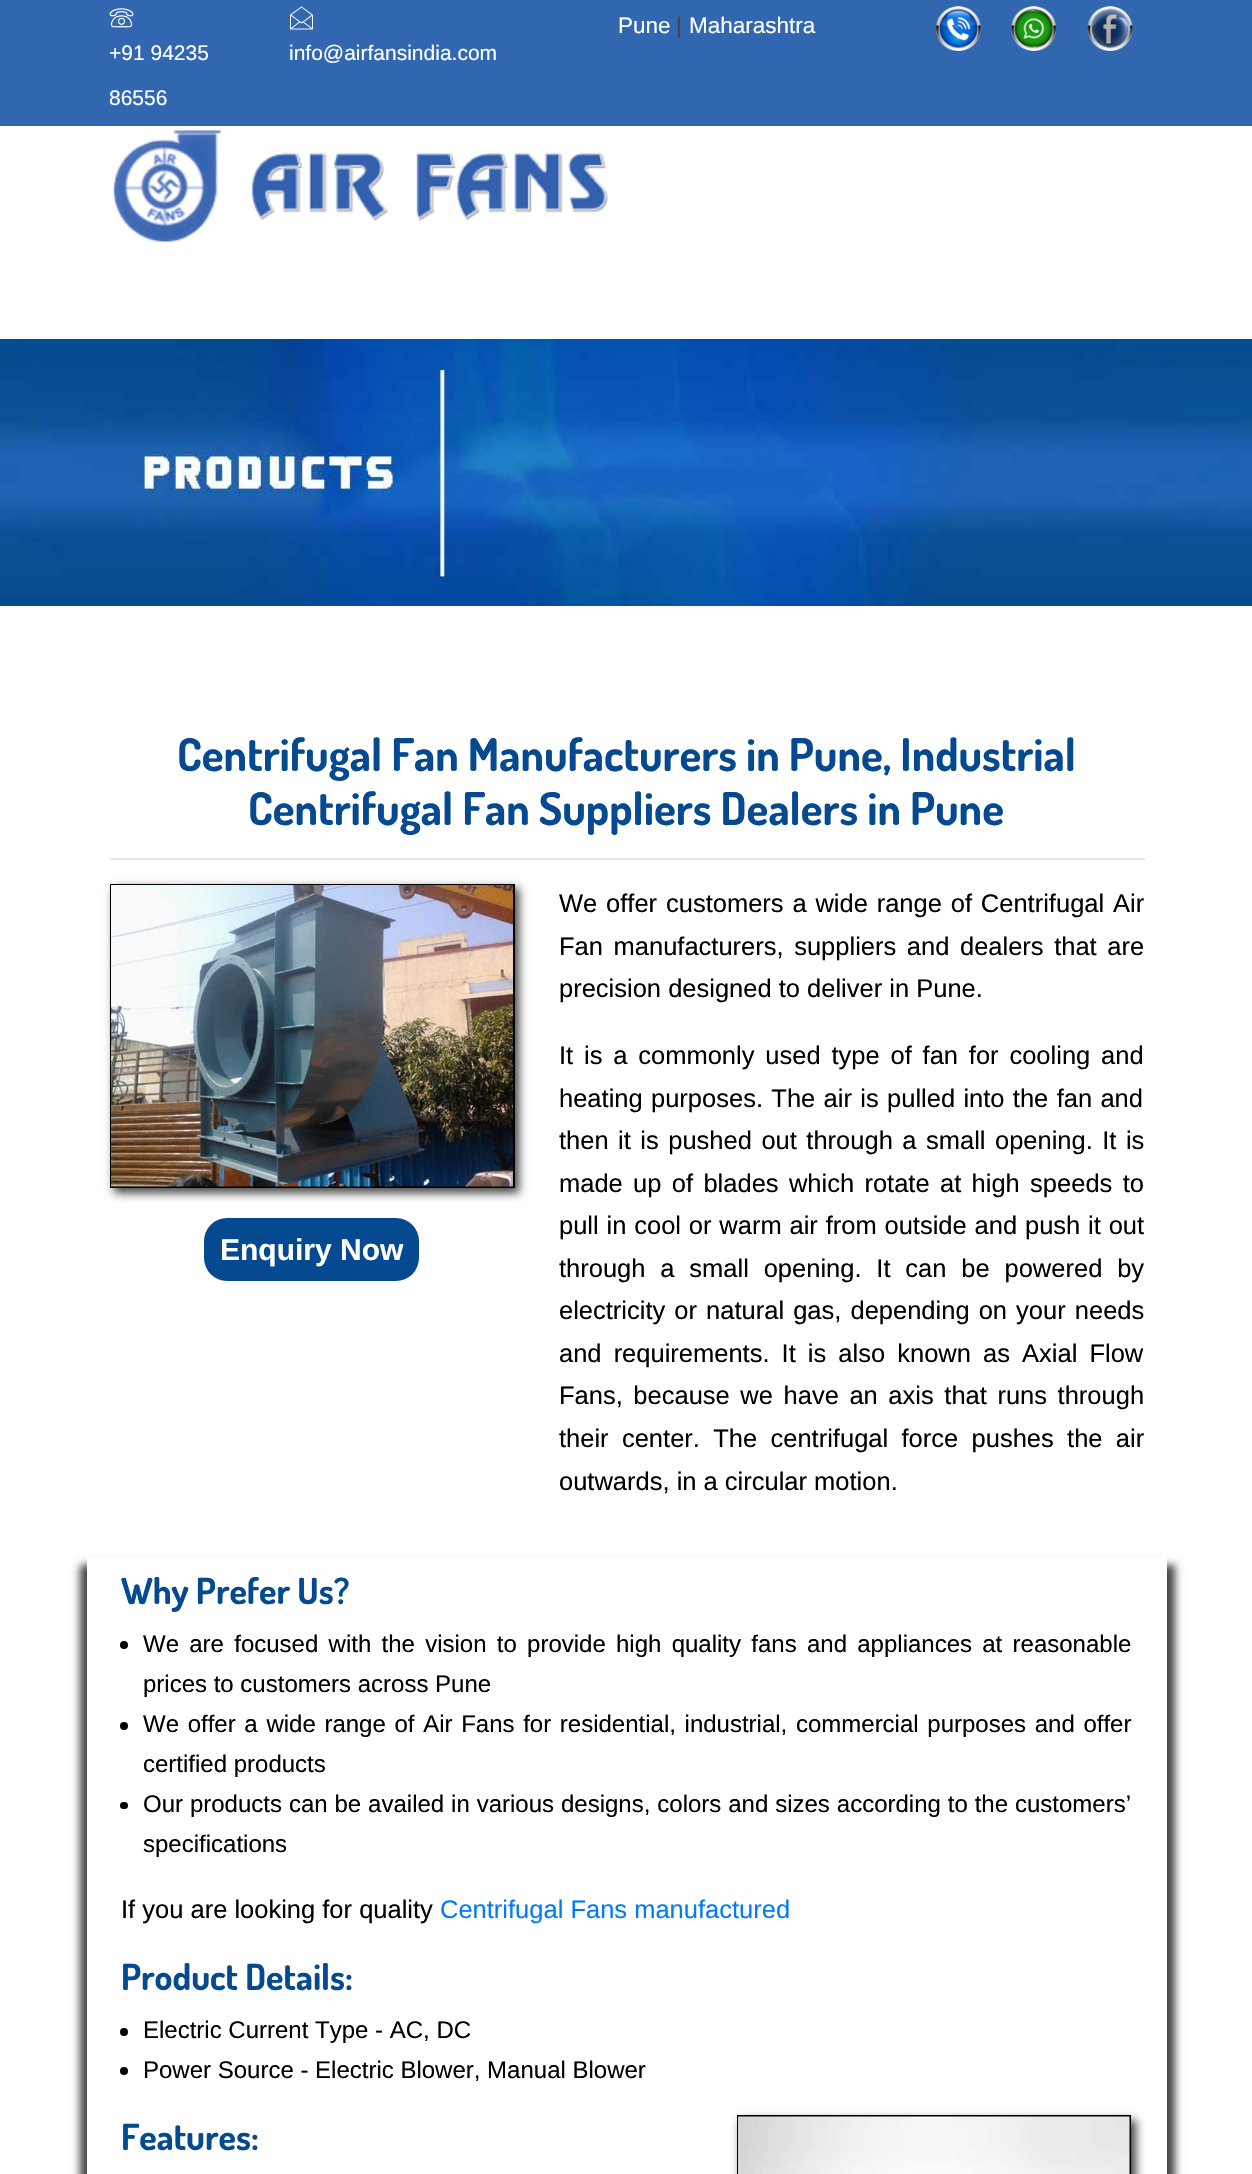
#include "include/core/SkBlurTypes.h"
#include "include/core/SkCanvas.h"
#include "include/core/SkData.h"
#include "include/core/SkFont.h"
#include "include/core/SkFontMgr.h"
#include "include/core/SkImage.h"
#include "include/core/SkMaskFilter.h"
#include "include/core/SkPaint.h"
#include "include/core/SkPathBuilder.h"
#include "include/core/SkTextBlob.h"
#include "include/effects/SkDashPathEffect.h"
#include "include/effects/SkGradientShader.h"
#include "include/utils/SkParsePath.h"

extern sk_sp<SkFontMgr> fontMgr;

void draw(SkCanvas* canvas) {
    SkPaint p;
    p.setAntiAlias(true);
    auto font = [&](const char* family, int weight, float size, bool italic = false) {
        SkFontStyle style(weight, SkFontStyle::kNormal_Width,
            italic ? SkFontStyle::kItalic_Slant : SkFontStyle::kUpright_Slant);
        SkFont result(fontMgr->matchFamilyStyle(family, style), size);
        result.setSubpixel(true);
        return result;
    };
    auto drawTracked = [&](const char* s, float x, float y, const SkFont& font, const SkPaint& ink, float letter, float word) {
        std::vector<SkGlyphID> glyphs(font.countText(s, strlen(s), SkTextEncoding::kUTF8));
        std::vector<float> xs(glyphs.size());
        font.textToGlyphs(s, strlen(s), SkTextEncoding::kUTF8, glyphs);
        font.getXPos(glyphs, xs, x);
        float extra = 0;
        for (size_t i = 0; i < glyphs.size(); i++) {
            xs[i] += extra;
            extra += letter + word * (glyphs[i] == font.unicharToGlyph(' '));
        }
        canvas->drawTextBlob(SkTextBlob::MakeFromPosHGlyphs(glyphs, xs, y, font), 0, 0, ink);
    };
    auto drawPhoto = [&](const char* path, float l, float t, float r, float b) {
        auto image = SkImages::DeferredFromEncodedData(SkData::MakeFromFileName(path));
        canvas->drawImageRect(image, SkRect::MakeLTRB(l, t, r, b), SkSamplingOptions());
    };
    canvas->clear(0xFFFFFFFF);
    p.setColor(0xFF3166B1);
    canvas->drawRect(SkRect::MakeLTRB(0, 0, 1252, 126), p);
    auto font1 = font("Liberation Sans", 400, 22.5f);
    p.setColor(0xFFFFFFFF);
    canvas->drawString("Pune", 618, 33, font1, p);
    p.setColor(0xFF444444);
    canvas->drawString("|", 676, 33, font1, p);
    p.setColor(0xFFFFFFFF);
    canvas->drawString("Maharashtra", 689, 33, font1, p);
    drawPhoto("media/1.png", 936, 6, 981, 51);
    drawPhoto("media/2.png", 1011, 6, 1056, 51);
    drawPhoto("media/3.png", 1087, 6, 1133, 51);
    drawPhoto("media/4.png", 109, 8, 134, 28);
    auto font2 = font("Liberation Sans", 400, 21);
    canvas->drawString("+91 94235", 109, 60, font2, p);
    canvas->drawString("86556", 109, 105, font2, p);
    drawPhoto("media/5.png", 290, 6, 313, 30);
    canvas->drawString("info@airfansindia.com", 289, 60, font2, p);
    drawPhoto("media/6.png", 113, 130, 608, 242);
    drawPhoto("media/7.png", 0, 339, 1252, 606);
    auto font3 = font("Dosis", 700, 45);
    p.setColor(0xFF054990);
    canvas->drawString("Centrifugal Fan Manufacturers in Pune, Industrial", 177, 771, font3, p);
    canvas->drawString("Centrifugal Fan Suppliers Dealers in Pune", 248, 825, font3, p);
    p.setColor(0xFFE6E6E6);
    canvas->drawRect(SkRect::MakeLTRB(110, 858, 1145, 860), p);
    p.setColor(0xFF444444);
    p.setMaskFilter(SkMaskFilter::MakeBlur(kNormal_SkBlurStyle, 4.5f));
    canvas->drawRect(SkRect::MakeLTRB(114, 888, 519, 1193), p);
    p.setMaskFilter(nullptr);
    p.setStyle(SkPaint::kStroke_Style);
    p.setStrokeWidth(2);
    p.setColor(0xFF000000);
    canvas->drawRect(SkRect::MakeLTRB(111, 885, 514, 1187), p);
    drawPhoto("media/8.png", 111, 885, 513, 1187);
    p.setStyle(SkPaint::kFill_Style);
    p.setColor(0xFF054990);
    canvas->drawRoundRect(SkRect::MakeLTRB(204, 1218, 419, 1281), 23, 23, p);
    auto font4 = font("Liberation Sans", 700, 30);
    p.setColor(0xFFFFFFFF);
    canvas->drawString("Enquiry Now", 220, 1260, font4, p);
    auto font5 = font("Liberation Sans", 400, 25.5f);
    p.setColor(0xFF000000);
    drawTracked("We offer customers a wide range of Centrifugal Air", 559, 912, font5, p, 0, 1.75f);
    drawTracked("Fan manufacturers, suppliers and dealers that are", 559, 955, font5, p, 0, 3.5f);
    canvas->drawString("precision designed to deliver in Pune.", 559, 997, font5, p);
    drawTracked("It is a commonly used type of fan for cooling and", 559, 1064, font5, p, 0, 3.75f);
    drawTracked("heating purposes. The air is pulled into the fan and", 559, 1107, font5, p, 0, 1.25f);
    drawTracked("then it is pushed out through a small opening. It is", 559, 1149, font5, p, 0, 2.4f);
    drawTracked("made up of blades which rotate at high speeds to", 559, 1192, font5, p, 0, 3.25f);
    drawTracked("pull in cool or warm air from outside and push it out", 559, 1234, font5, p, 0, 0.75f);
    drawTracked("through a small opening. It can be powered by", 559, 1277, font5, p, 0, 7.75f);
    drawTracked("electricity or natural gas, depending on your needs", 559, 1319, font5, p, 0, 2);
    drawTracked("and requirements. It is also known as Axial Flow", 559, 1362, font5, p, 0, 5);
    drawTracked("Fans, because we have an axis that runs through", 559, 1404, font5, p, 0, 3.5f);
    drawTracked("their center. The centrifugal force pushes the air", 559, 1447, font5, p, 0, 6.25f);
    canvas->drawString("outwards, in a circular motion.", 559, 1490, font5, p);
    canvas->save();
    canvas->clipPath(SkPathBuilder(SkPathFillType::kEvenOdd).moveTo(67, 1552).lineTo(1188, 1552).lineTo(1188, 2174).lineTo(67, 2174).close().moveTo(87, 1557).lineTo(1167, 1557).lineTo(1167, 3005).lineTo(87, 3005).close().detach(), true);
    p.setColor(0xFF444444);
    p.setMaskFilter(SkMaskFilter::MakeBlur(kNormal_SkBlurStyle, 4));
    canvas->drawRect(SkRect::MakeLTRB(80, 1565, 1175, 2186), p);
    p.setMaskFilter(nullptr);
    canvas->restore();
    auto font6 = font("Dosis", 700, 36);
    p.setColor(0xFF054990);
    canvas->drawString("Why Prefer Us?", 121, 1604, font6, p);
    p.setColor(0xFF000000);
    canvas->drawCircle(124, 1645, 4, p);
    auto font7 = font("Liberation Sans", 400, 24);
    drawTracked("We are focused with the vision to provide high quality fans and appliances at reasonable", 143, 1652, font7, p, 0, 3.6f);
    canvas->drawString("prices to customers across Pune", 143, 1692, font7, p);
    canvas->drawCircle(124, 1726, 4, p);
    drawTracked("We offer a wide range of Air Fans for residential, industrial, commercial purposes and offer", 143, 1732, font7, p, 0, 2);
    canvas->drawString("certified products", 143, 1772, font7, p);
    canvas->drawRoundRect(SkRect::MakeLTRB(120, 1802, 128, 1809), 3.5f, 3.5f, p);
    drawTracked("Our products can be availed in various designs, colors and sizes according to the customers’", 143, 1812, font7, p, 0, 0.25f);
    canvas->drawString("specifications", 143, 1852, font7, p);
    canvas->drawString("If you are looking for quality", 121, 1918, font5, p);
    p.setColor(0xFF007BFF);
    canvas->drawString("Centrifugal Fans manufactured", 440, 1918, font5, p);
    p.setColor(0xFF054990);
    canvas->drawString("Product Details:", 121, 1990, font6, p);
    p.setColor(0xFF000000);
    canvas->drawCircle(124, 2032, 4, p);
    canvas->drawString("Electric Current Type - AC, DC", 143, 2038, font7, p);
    canvas->drawCircle(124, 2071, 4, p);
    canvas->drawString("Power Source - Electric Blower, Manual Blower", 143, 2078, font7, p);
    p.setColor(0xFF054990);
    canvas->drawString("Features:", 121, 2150, font6, p);
    p.setColor(0xFF444444);
    p.setMaskFilter(SkMaskFilter::MakeBlur(kNormal_SkBlurStyle, 4.5f));
    canvas->drawRect(SkRect::MakeLTRB(741, 2120, 1136, 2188), p);
    p.setMaskFilter(nullptr);
    p.setStyle(SkPaint::kStroke_Style);
    p.setColor(0xFF000000);
    canvas->drawRect(SkRect::MakeLTRB(738, 2116, 1130, 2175), p);
    drawPhoto("media/9.png", 738, 2116, 1130, 2174);
}
